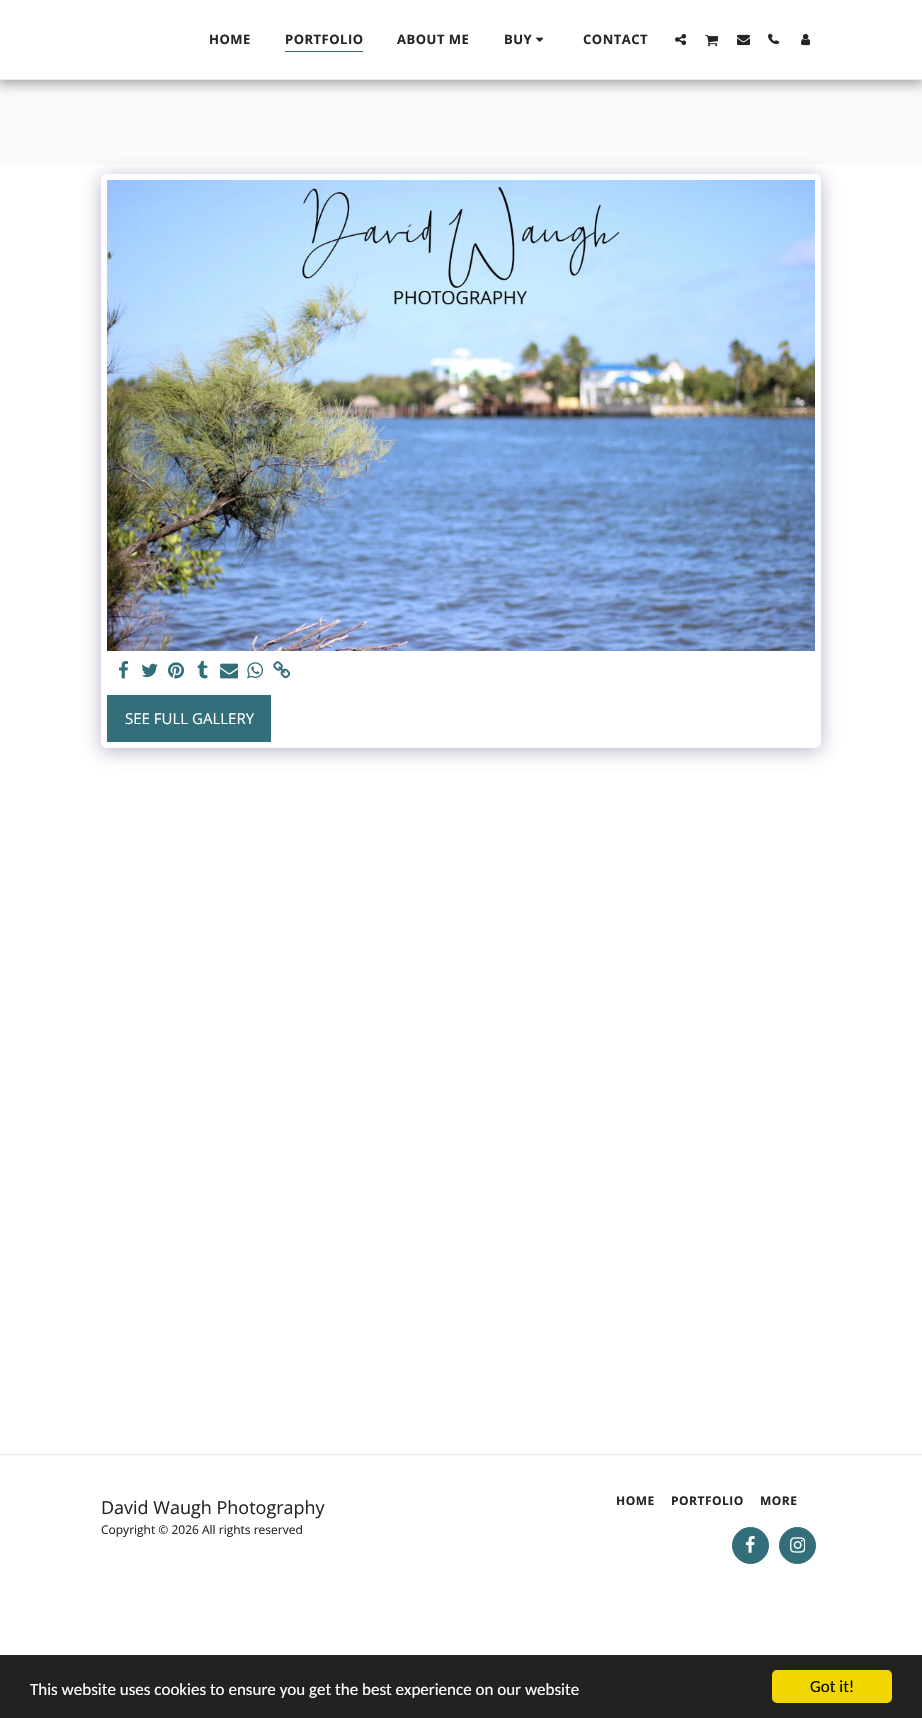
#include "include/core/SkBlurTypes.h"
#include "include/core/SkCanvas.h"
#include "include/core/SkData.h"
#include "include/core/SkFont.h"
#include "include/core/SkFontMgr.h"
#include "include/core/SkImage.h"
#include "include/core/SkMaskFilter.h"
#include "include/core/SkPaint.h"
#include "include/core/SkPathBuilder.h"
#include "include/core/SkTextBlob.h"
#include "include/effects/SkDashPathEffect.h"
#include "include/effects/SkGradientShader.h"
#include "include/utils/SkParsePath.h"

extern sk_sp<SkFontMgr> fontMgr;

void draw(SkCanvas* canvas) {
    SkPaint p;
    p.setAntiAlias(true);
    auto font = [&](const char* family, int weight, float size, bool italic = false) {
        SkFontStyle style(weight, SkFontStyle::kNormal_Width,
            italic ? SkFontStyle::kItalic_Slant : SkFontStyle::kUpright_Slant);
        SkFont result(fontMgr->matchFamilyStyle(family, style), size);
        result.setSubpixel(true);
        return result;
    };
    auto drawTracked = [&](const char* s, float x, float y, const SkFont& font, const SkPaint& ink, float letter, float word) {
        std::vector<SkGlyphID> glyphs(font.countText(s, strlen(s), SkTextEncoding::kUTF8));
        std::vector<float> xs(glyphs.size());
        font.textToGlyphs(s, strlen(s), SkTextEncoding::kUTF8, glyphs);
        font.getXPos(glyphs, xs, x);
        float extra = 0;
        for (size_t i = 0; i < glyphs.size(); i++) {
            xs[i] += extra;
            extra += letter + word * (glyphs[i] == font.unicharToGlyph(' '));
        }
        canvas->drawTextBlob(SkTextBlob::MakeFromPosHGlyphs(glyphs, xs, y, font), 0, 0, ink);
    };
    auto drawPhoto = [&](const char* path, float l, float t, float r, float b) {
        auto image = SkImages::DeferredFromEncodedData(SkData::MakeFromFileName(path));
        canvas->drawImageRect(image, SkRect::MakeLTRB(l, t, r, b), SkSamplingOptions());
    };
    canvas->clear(0xFFFFFFFF);
    p.setColor(0xFFFAFAFA);
    canvas->drawRect(SkRect::MakeLTRB(0, 80, 922, 164), p);
    p.setColor(0x59000000);
    p.setMaskFilter(SkMaskFilter::MakeBlur(kNormal_SkBlurStyle, 6));
    canvas->drawRect(SkRect::MakeLTRB(-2, 0, 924, 84), p);
    p.setMaskFilter(nullptr);
    p.setColor(0xFFFFFFFF);
    canvas->drawRect(SkRect::MakeLTRB(0, 0, 922, 79), p);
    p.setColor(0xFFEBEBEB);
    canvas->drawRect(SkRect::MakeLTRB(0, 79, 922, 80), p);
    auto font1 = font("Open Sans", 700, 13);
    p.setColor(0xFF252525);
    drawTracked("HOME", 209, 44, font1, p, 0.5f, 0);
    drawTracked("PORTFOLIO", 285, 44, font1, p, 0.5f, 0);
    p.setColor(0xFF336E7B);
    canvas->drawRect(SkRect::MakeLTRB(285, 51, 363, 52), p);
    p.setColor(0xFF252525);
    drawTracked("ABOUT ME", 397, 44, font1, p, 0.5f, 0);
    drawTracked("BUY", 504, 44, font1, p, 0.5f, 0);
    drawPhoto("media/1.png", 536, 37, 543, 42);
    drawTracked("CONTACT", 583, 44, font1, p, 0.5f, 0);
    drawPhoto("media/2.png", 675, 33, 686, 46);
    drawPhoto("media/3.png", 705, 35, 718, 47);
    drawPhoto("media/4.png", 737, 34, 750, 46);
    drawPhoto("media/5.png", 769, 34, 780, 45);
    drawPhoto("media/6.png", 768, 33, 779, 44);
    drawPhoto("media/7.png", 801, 34, 810, 46);
    p.setColor(0x664D3F7A);
    p.setMaskFilter(SkMaskFilter::MakeBlur(kNormal_SkBlurStyle, 10));
    canvas->drawRoundRect(SkRect::MakeLTRB(101, 177, 821, 751), 6, 6, p);
    p.setMaskFilter(nullptr);
    p.setColor(0xFFFFFFFF);
    canvas->drawRoundRect(SkRect::MakeLTRB(101, 174, 821, 748), 6, 6, p);
    drawPhoto("media/8.png", 107, 180, 815, 651);
    drawPhoto("media/9.png", 119, 661, 129, 679);
    drawPhoto("media/10.png", 141, 663, 158, 678);
    drawPhoto("media/11.png", 168, 662, 184, 679);
    drawPhoto("media/12.png", 197, 661, 208, 679);
    drawPhoto("media/13.png", 220, 663, 238, 679);
    drawPhoto("media/14.png", 247, 662, 263, 679);
    drawPhoto("media/15.png", 273, 661, 290, 679);
    p.setColor(0xFF336E7B);
    canvas->drawRect(SkRect::MakeLTRB(107, 695, 271, 742), p);
    auto font2 = font("Open Sans", 400, 15);
    p.setColor(0xFFFFFFFF);
    canvas->drawString("SEE FULL GALLERY", 125, 724, font2, p);
    p.setColor(0xFFEBEBEB);
    canvas->drawRect(SkRect::MakeLTRB(0, 1454, 922, 1455), p);
    auto font3 = font("Open Sans", 400, 18);
    p.setColor(0xFF252525);
    canvas->drawString("David Waugh Photography", 101, 1514, font3, p);
    auto font4 = font("Open Sans", 400, 12);
    canvas->drawString("Copyright © 2026 All rights reserved", 101, 1534, font4, p);
    auto font5 = font("Open Sans", 700, 12);
    {
        const struct { const char* s; float x, y; } items[] = {
            {"HOME", 616, 1505},
            {"PORTFOLIO", 671, 1505},
            {"MORE", 760, 1505},
        };
        for (auto [s, x, y] : items) {
            drawTracked(s, x, y, font5, p, 0.5f, 0);
        }
    }
    p.setColor(0xFF336E7B);
    canvas->drawCircle(750.5f, 1545.5f, 18, p);
    p.setStyle(SkPaint::kStroke_Style);
    p.setStrokeWidth(1);
    canvas->drawCircle(750.5f, 1545.5f, 18, p);
    drawPhoto("media/16.png", 745, 1536, 755, 1553);
    p.setStyle(SkPaint::kFill_Style);
    canvas->drawCircle(797.5f, 1545.5f, 18, p);
    p.setStyle(SkPaint::kStroke_Style);
    canvas->drawCircle(797.5f, 1545.5f, 18, p);
    drawPhoto("media/17.png", 790, 1537, 805, 1553);
    p.setStyle(SkPaint::kFill_Style);
    p.setColor(0xFF222222);
    canvas->drawRect(SkRect::MakeLTRB(0, 1655, 922, 1718), p);
    auto font6 = font("Carlito", 400, 17);
    p.setColor(0xFFFFFFFF);
    canvas->drawString("This website uses cookies to ensure you get the best experience on our website", 30, 1695, font6, p);
    p.setColor(0xFFF1D600);
    canvas->drawRoundRect(SkRect::MakeLTRB(772, 1670, 892, 1703), 5, 5, p);
    p.setColor(0xFF000000);
    canvas->drawString("Got it!", 810, 1692, font6, p);
}
